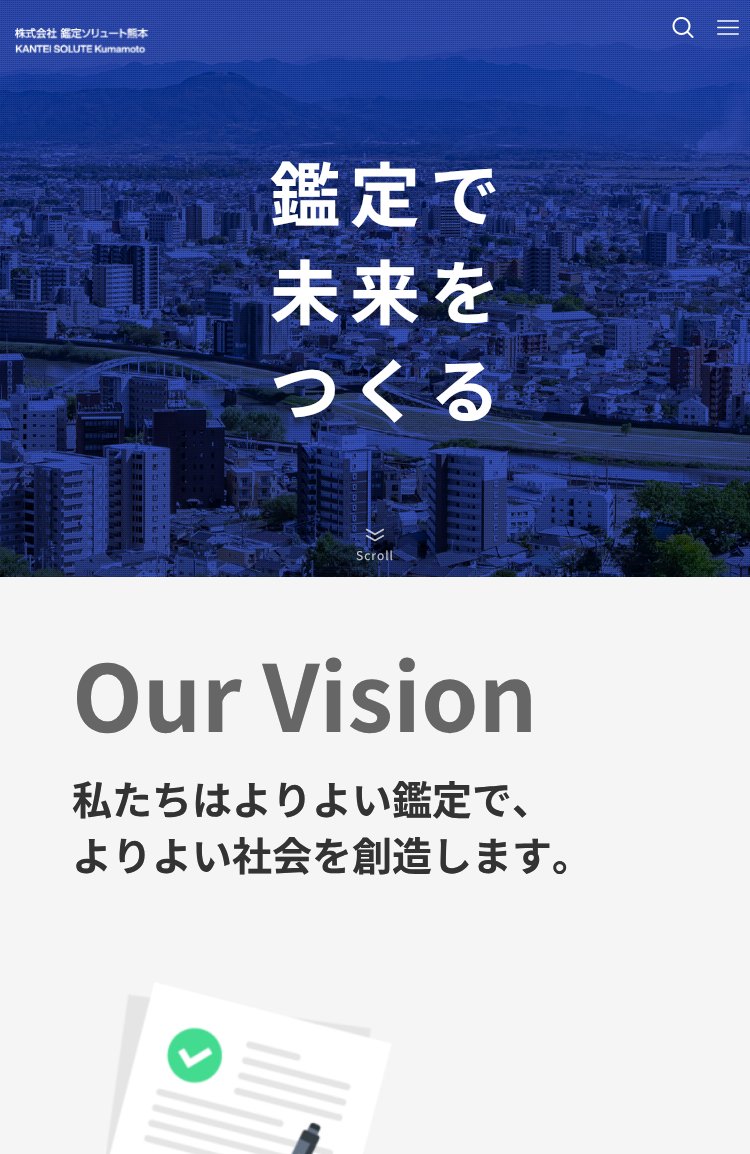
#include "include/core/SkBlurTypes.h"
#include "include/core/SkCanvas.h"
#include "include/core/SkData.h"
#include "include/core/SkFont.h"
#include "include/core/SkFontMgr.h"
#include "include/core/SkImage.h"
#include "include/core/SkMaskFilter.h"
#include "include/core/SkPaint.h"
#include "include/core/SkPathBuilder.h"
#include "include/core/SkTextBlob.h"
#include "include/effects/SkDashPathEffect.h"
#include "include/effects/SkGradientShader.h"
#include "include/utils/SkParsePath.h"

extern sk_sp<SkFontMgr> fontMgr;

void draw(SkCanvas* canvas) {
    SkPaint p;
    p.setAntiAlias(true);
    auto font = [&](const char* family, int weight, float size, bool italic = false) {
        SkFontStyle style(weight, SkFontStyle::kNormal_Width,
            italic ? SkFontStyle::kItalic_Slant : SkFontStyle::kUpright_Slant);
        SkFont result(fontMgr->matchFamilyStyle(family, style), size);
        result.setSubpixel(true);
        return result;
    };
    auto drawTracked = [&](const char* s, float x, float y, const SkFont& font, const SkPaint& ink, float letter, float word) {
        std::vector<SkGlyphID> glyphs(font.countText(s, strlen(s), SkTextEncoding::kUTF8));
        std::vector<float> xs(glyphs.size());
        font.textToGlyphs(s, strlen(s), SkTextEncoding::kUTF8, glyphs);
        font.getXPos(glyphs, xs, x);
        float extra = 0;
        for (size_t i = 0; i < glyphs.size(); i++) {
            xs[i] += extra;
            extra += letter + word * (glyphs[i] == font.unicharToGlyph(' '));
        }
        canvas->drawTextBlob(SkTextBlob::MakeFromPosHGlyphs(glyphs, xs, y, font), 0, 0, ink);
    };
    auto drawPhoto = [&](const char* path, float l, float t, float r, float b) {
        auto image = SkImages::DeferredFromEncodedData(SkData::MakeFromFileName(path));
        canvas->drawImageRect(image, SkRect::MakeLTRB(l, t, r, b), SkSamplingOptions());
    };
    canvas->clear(0xFFFFFFFF);
    drawPhoto("media/4.png", 0, 0, 750, 577);
    drawPhoto("media/5.png", 0, 0, 750, 577);
    drawPhoto("media/1.png", 15, 28, 149, 53);
    drawPhoto("media/2.png", 672, 17, 694, 38);
    drawPhoto("media/3.png", 717, 20, 739, 35);
    auto font1 = font("Noto Sans JP", 700, 70);
    p.setColor(0xFFFFFFFF);
    {
        const struct { const char* s; float x, y; } items[] = {
            {"鑑定で", 270, 221},
            {"未来を", 270, 319},
            {"つくる", 270, 417},
        };
        for (auto [s, x, y] : items) {
            drawTracked(s, x, y, font1, p, 10, 0);
        }
    }
    drawPhoto("media/6.png", 365, 528, 385, 542);
    auto font2 = font("Noto Sans JP", 400, 12);
    p.setColor(0xFFC4C7CD);
    drawTracked("Scroll", 356, 560, font2, p, 1, 0);
    p.setColor(0xFFF5F5F5);
    canvas->drawRect(SkRect::MakeLTRB(0, 577, 750, 1154), p);
    auto font3 = font("Noto Sans JP", 700, 92);
    p.setColor(0xFF666666);
    canvas->drawString("Our Vision", 72, 732, font3, p);
    auto font4 = font("Noto Sans JP", 700, 40);
    p.setColor(0xFF333333);
    canvas->drawString("私たちはよりよい鑑定で、", 72, 815, font4, p);
    canvas->drawString("よりよい社会を創造します。", 72, 871, font4, p);
    drawPhoto("media/7.png", 106, 982, 392, 1154);
}
